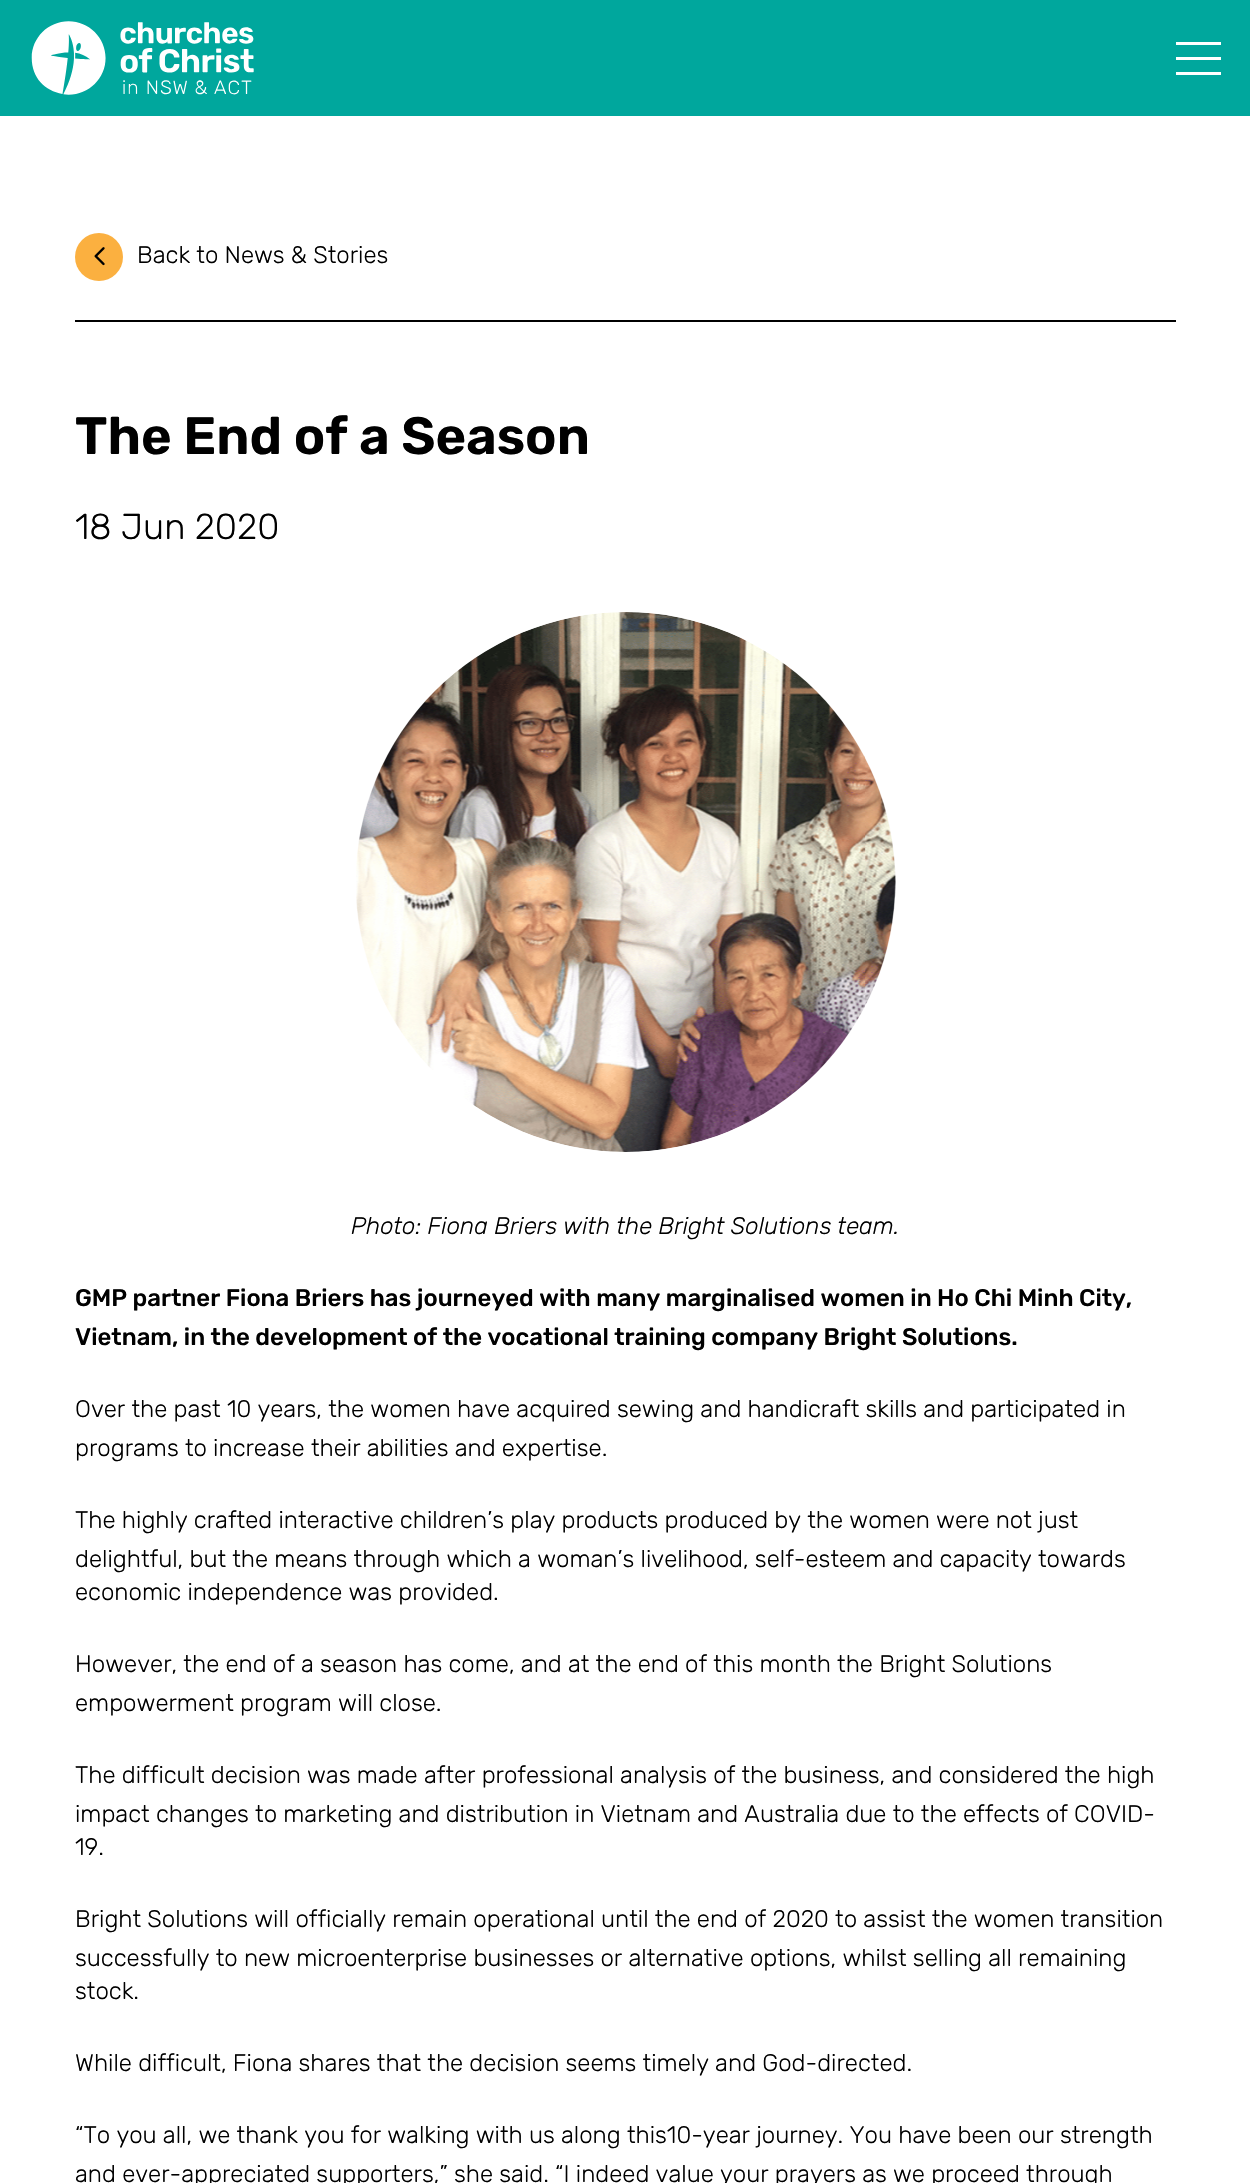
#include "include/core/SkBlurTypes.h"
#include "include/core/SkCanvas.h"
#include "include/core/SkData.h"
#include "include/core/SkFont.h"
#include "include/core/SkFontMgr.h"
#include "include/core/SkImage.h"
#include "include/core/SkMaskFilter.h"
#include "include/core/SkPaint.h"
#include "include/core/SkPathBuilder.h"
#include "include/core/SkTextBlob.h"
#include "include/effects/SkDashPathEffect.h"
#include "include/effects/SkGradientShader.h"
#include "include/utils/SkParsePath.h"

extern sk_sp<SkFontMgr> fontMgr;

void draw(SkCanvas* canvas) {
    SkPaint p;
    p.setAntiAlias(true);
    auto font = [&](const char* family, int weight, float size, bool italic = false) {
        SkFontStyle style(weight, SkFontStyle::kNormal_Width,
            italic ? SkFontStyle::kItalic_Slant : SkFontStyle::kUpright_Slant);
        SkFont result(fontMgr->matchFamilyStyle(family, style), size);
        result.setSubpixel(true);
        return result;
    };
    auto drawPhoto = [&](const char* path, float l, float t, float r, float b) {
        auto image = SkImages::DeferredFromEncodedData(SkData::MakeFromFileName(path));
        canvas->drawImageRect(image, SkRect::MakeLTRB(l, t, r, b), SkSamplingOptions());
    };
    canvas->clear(0xFFFFFFFF);
    p.setColor(0xFF00A79D);
    canvas->drawRect(SkRect::MakeLTRB(0, 0, 1250, 116), p);
    drawPhoto("media/1.png", 31, 21, 254, 95);
    {
        const struct { float l, t, r, b; SkColor color; } items[] = {
            {1176, 42, 1221, 45, 0xFFFFFFFF},
            {1176, 57, 1221, 60, 0xFFFFFFFF},
            {1176, 72, 1221, 75, 0xFFFFFFFF},
            {75, 320, 1176, 322, 0xFF000000},
        };
        for (auto [l, t, r, b, color] : items) {
            p.setColor(color);
            canvas->drawRect(SkRect::MakeLTRB(l, t, r, b), p);
        }
    }
    p.setColor(0xFFFBB040);
    canvas->drawCircle(99, 257, 24, p);
    drawPhoto("media/2.png", 94, 247, 105, 266);
    auto font1 = font("Rubik", 300, 24);
    p.setColor(0xFF000000);
    canvas->drawString("Back to News & Stories", 137, 263, font1, p);
    auto font2 = font("Rubik", 600, 52.5f);
    canvas->drawString("The End of a Season", 75, 454, font2, p);
    auto font3 = font("Rubik", 300, 36);
    canvas->drawString("18 Jun 2020", 75, 539, font3, p);
    drawPhoto("media/3.png", 356, 612, 896, 1152);
    auto font4 = font("Rubik", 300, 24, true);
    canvas->drawString("Photo: Fiona Briers with the Bright Solutions team.", 351, 1234, font4, p);
    auto font5 = font("Rubik", 500, 24);
    canvas->drawString("GMP partner Fiona Briers has journeyed with many marginalised women in Ho Chi Minh City,", 75, 1306, font5, p);
    canvas->drawString("Vietnam, in the development of the vocational training company Bright Solutions.", 75, 1345, font5, p);
    {
        const struct { const char* s; float x, y; } items[] = {
            {"Over the past 10 years, the women have acquired sewing and handicraft skills and participated in", 75, 1417},
            {"programs to increase their abilities and expertise.", 75, 1456},
            {"The highly crafted interactive children’s play products produced by the women were not just", 75, 1528},
            {"delightful, but the means through which a woman’s livelihood, self-esteem and capacity towards", 75, 1567},
            {"economic independence was provided.", 75, 1600},
            {"However, the end of a season has come, and at the end of this month the Bright Solutions", 75, 1672},
            {"empowerment program will close.", 75, 1711},
            {"The difficult decision was made after professional analysis of the business, and considered the high", 75, 1783},
            {"impact changes to marketing and distribution in Vietnam and Australia due to the effects of COVID-", 75, 1822},
            {"19.", 75, 1855},
            {"Bright Solutions will officially remain operational until the end of 2020 to assist the women transition", 75, 1927},
            {"successfully to new microenterprise businesses or alternative options, whilst selling all remaining", 75, 1966},
            {"stock.", 75, 1999},
            {"While difficult, Fiona shares that the decision seems timely and God-directed.", 75, 2071},
            {"“To you all, we thank you for walking with us along this10-year journey. You have been our strength", 75, 2143},
            {"and ever-appreciated supporters,” she said. “I indeed value your prayers as we proceed through", 75, 2182},
        };
        for (auto [s, x, y] : items) {
            canvas->drawString(s, x, y, font1, p);
        }
    }
}
